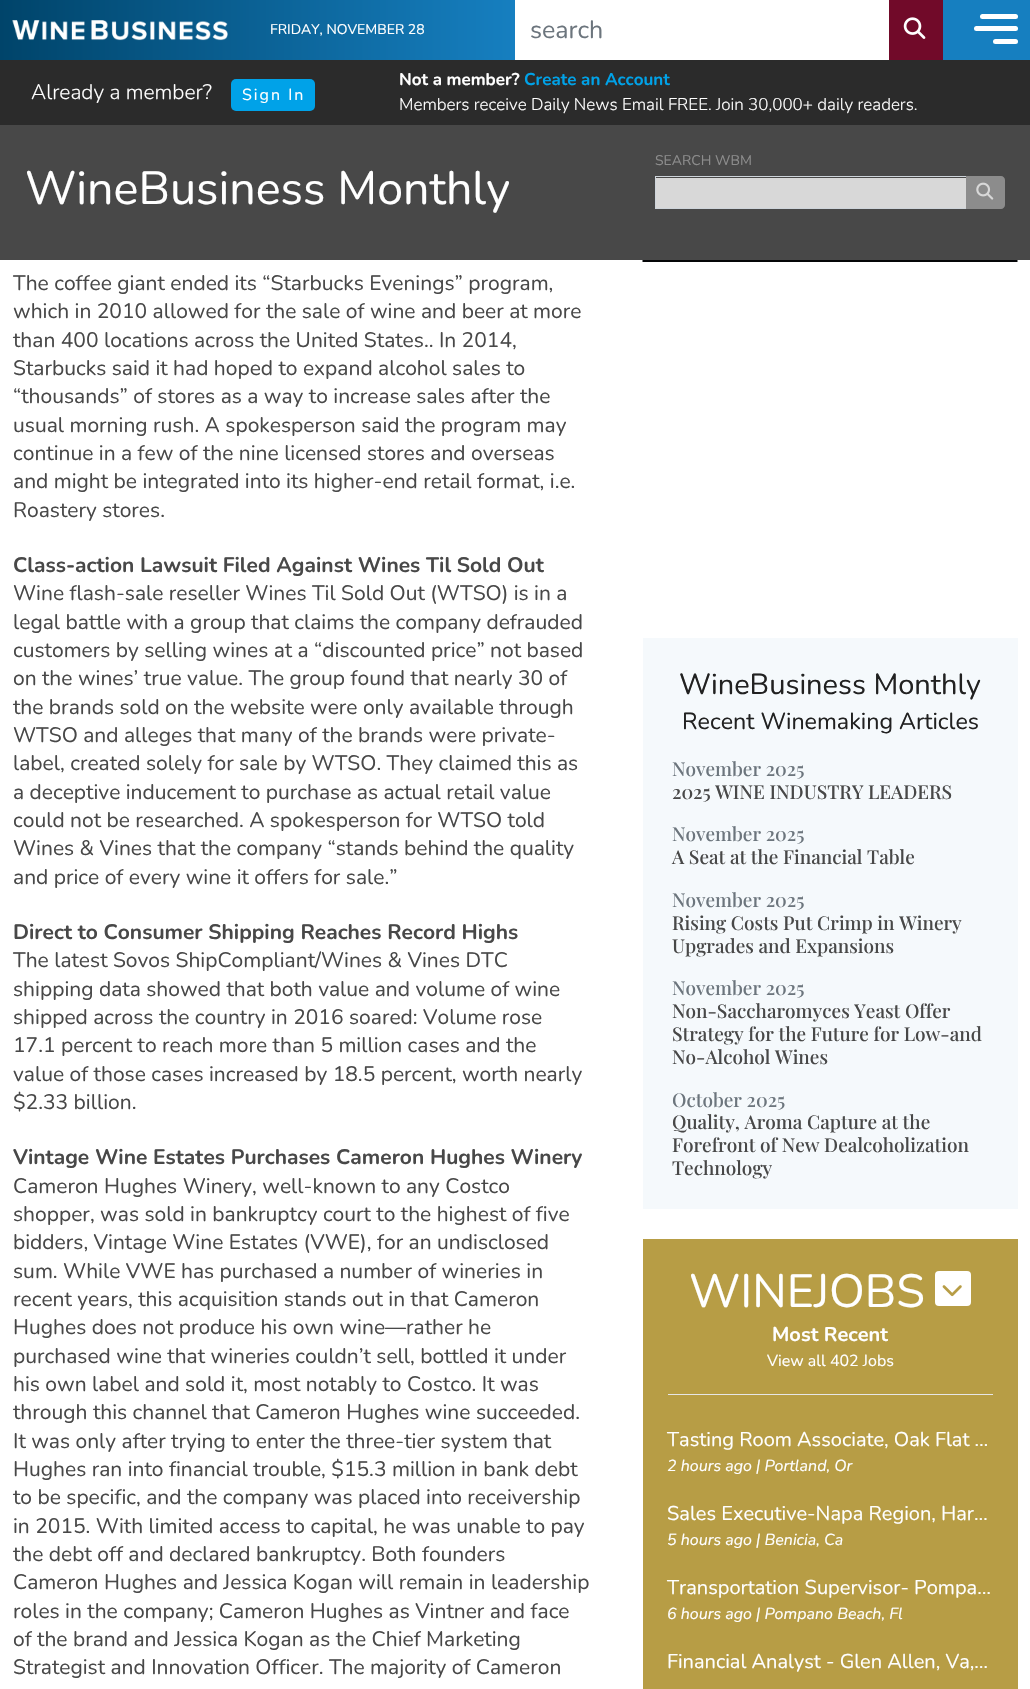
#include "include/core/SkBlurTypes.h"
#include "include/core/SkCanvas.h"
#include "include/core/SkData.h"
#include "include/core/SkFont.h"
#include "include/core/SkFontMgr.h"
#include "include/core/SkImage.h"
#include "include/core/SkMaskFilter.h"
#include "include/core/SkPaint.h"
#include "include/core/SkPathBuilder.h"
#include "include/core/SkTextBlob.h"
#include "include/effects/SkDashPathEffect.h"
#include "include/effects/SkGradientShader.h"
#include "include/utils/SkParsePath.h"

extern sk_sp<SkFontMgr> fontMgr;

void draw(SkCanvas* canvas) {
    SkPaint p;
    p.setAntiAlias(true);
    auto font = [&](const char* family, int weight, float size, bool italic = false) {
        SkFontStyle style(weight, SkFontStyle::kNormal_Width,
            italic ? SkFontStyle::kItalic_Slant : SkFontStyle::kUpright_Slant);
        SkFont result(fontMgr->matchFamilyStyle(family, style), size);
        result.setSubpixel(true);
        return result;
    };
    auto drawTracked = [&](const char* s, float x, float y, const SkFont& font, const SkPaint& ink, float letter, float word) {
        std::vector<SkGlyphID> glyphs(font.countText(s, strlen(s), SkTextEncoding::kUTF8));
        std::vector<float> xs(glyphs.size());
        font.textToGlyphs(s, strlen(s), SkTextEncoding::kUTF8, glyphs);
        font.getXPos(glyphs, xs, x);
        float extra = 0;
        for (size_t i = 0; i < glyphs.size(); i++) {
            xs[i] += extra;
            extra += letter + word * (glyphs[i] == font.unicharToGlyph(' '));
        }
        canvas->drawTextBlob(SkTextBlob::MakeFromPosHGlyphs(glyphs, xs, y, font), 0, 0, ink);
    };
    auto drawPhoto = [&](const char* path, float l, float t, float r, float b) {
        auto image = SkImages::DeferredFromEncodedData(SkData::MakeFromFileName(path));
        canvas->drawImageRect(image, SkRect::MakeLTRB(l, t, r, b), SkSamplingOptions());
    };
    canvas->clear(0xFFFFFFFF);
    p.setColor(0xFF2B2B2B);
    canvas->drawRect(SkRect::MakeLTRB(0, 60, 1030, 125), p);
    {
        const SkColor colors[] = {0xFF00446A, 0xFF167FC0};
        const float stops[] = {0, 0.5f};
        const SkPoint ends[] = {{0, 30}, {1030, 30}};
        p.setShader(SkGradientShader::MakeLinear(ends, colors, stops, 2, SkTileMode::kClamp));
        p.setAlpha(255);
    }
    canvas->drawRect(SkRect::MakeLTRB(0, 0, 1030, 60), p);
    drawPhoto("media/1.png", 12, 20, 228, 41);
    auto font1 = font("Nunito", 400, 14);
    p.setShader(nullptr);
    p.setColor(0xFFFFFFFF);
    canvas->drawString("FRIDAY, NOVEMBER 28", 270, 34, font1, p);
    canvas->drawRect(SkRect::MakeLTRB(515, 0, 889, 60), p);
    auto font2 = font("Nunito", 400, 25);
    p.setColor(0xFF6C757D);
    canvas->drawString("search", 530, 38, font2, p);
    p.setColor(0xFF710A29);
    canvas->drawRect(SkRect::MakeLTRB(889, 0, 943, 60), p);
    drawPhoto("media/2.png", 903, 17, 926, 39);
    p.setColor(0xFFFFFFFF);
    canvas->drawRoundRect(SkRect::MakeLTRB(980, 14, 1018, 19), 2.5f, 2.5f, p);
    canvas->drawRoundRect(SkRect::MakeLTRB(974, 26, 1018, 31), 2.5f, 2.5f, p);
    canvas->drawRoundRect(SkRect::MakeLTRB(993, 39, 1018, 44), 2.5f, 2.5f, p);
    auto font3 = font("Nunito", 300, 21);
    canvas->drawString("Already a member?", 31, 99, font3, p);
    p.setColor(0xFF00A2E8);
    canvas->drawRoundRect(SkRect::MakeLTRB(231, 79, 315, 111), 5, 5, p);
    auto font4 = font("Nunito", 400, 16);
    p.setColor(0xFFFFFFFF);
    drawTracked("Sign In", 242, 100, font4, p, 2, 0);
    auto font5 = font("Nunito", 700, 17);
    canvas->drawString("Not a member?", 399, 85, font5, p);
    p.setColor(0xFF00A2E8);
    canvas->drawString("Create an Account", 524, 85, font5, p);
    auto font6 = font("Nunito", 300, 17);
    p.setColor(0xFFFFFFFF);
    canvas->drawString("Members receive Daily News Email FREE. Join 30,000+ daily readers.", 399, 110, font6, p);
    p.setColor(0xFF484848);
    canvas->drawRect(SkRect::MakeLTRB(0, 125, 1030, 260), p);
    p.setColor(0xFF8C8C8C);
    canvas->drawString("SEARCH WBM", 655, 165, font1, p);
    p.setColor(0xFFD8D8D8);
    canvas->drawRect(SkRect::MakeLTRB(656, 178, 966, 208), p);
    p.setStyle(SkPaint::kStroke_Style);
    p.setStrokeWidth(1);
    p.setColor(0xFFCED4DA);
    canvas->drawRect(SkRect::MakeLTRB(655.5f, 176.5f, 967.5f, 208.5f), p);
    p.setStyle(SkPaint::kFill_Style);
    p.setColor(0xFF8C8C8C);
    canvas->drawPath(SkPathBuilder().moveTo(966, 176).lineTo(1001, 176).cubicTo(1003, 176, 1005, 178, 1005, 180).lineTo(1005, 205).cubicTo(1005, 207, 1003, 209, 1001, 209).lineTo(966, 209).close().detach(), p);
    drawPhoto("media/3.png", 976, 182, 994, 200);
    auto font7 = font("Nunito", 400, 46.6f);
    p.setColor(0xFFFFFFFF);
    canvas->drawString("WineBusiness Monthly", 25, 204, font7, p);
    auto font8 = font("Nunito", 400, 21);
    p.setColor(0xFF484848);
    {
        const struct { const char* s; float x, y; } items[] = {
            {"The coffee giant ended its “Starbucks Evenings” program,", 13, 290},
            {"which in 2010 allowed for the sale of wine and beer at more", 13, 318},
            {"than 400 locations across the United States.. In 2014,", 13, 347},
            {"Starbucks said it had hoped to expand alcohol sales to", 13, 375},
            {"“thousands” of stores as a way to increase sales after the", 13, 403},
            {"usual morning rush. A spokesperson said the program may", 13, 432},
            {"continue in a few of the nine licensed stores and overseas", 13, 460},
            {"and might be integrated into its higher-end retail format, i.e.", 13, 488},
            {"Roastery stores.", 13, 517},
        };
        for (auto [s, x, y] : items) {
            canvas->drawString(s, x, y, font8, p);
        }
    }
    auto font9 = font("Nunito", 700, 21);
    canvas->drawString("Class-action Lawsuit Filed Against Wines Til Sold Out", 13, 572, font9, p);
    {
        const struct { const char* s; float x, y; } items[] = {
            {"Wine flash-sale reseller Wines Til Sold Out (WTSO) is in a", 13, 600},
            {"legal battle with a group that claims the company defrauded", 13, 629},
            {"customers by selling wines at a “discounted price” not based", 13, 657},
            {"on the wines’ true value. The group found that nearly 30 of", 13, 685},
            {"the brands sold on the website were only available through", 13, 714},
            {"WTSO and alleges that many of the brands were private-", 13, 742},
            {"label, created solely for sale by WTSO. They claimed this as", 13, 770},
            {"a deceptive inducement to purchase as actual retail value", 13, 799},
            {"could not be researched. A spokesperson for WTSO told", 13, 827},
            {"Wines & Vines that the company “stands behind the quality", 13, 855},
            {"and price of every wine it offers for sale.”", 13, 884},
        };
        for (auto [s, x, y] : items) {
            canvas->drawString(s, x, y, font8, p);
        }
    }
    canvas->drawString("Direct to Consumer Shipping Reaches Record Highs", 13, 939, font9, p);
    {
        const struct { const char* s; float x, y; } items[] = {
            {"The latest Sovos ShipCompliant/Wines & Vines DTC", 13, 967},
            {"shipping data showed that both value and volume of wine", 13, 996},
            {"shipped across the country in 2016 soared: Volume rose", 13, 1024},
            {"17.1 percent to reach more than 5 million cases and the", 13, 1052},
            {"value of those cases increased by 18.5 percent, worth nearly", 13, 1081},
            {"$2.33 billion.", 13, 1109},
        };
        for (auto [s, x, y] : items) {
            canvas->drawString(s, x, y, font8, p);
        }
    }
    canvas->drawString("Vintage Wine Estates Purchases Cameron Hughes Winery", 13, 1164, font9, p);
    {
        const struct { const char* s; float x, y; } items[] = {
            {"Cameron Hughes Winery, well-known to any Costco", 13, 1193},
            {"shopper, was sold in bankruptcy court to the highest of five", 13, 1221},
            {"bidders, Vintage Wine Estates (VWE), for an undisclosed", 13, 1249},
            {"sum. While VWE has purchased a number of wineries in", 13, 1278},
            {"recent years, this acquisition stands out in that Cameron", 13, 1306},
            {"Hughes does not produce his own wine—rather he", 13, 1334},
            {"purchased wine that wineries couldn’t sell, bottled it under", 13, 1363},
            {"his own label and sold it, most notably to Costco. It was", 13, 1391},
            {"through this channel that Cameron Hughes wine succeeded.", 13, 1419},
            {"It was only after trying to enter the three-tier system that", 13, 1448},
            {"Hughes ran into financial trouble, $15.3 million in bank debt", 13, 1476},
            {"to be specific, and the company was placed into receivership", 13, 1504},
            {"in 2015. With limited access to capital, he was unable to pay", 13, 1533},
            {"the debt off and declared bankruptcy. Both founders", 13, 1561},
            {"Cameron Hughes and Jessica Kogan will remain in leadership", 13, 1589},
            {"roles in the company; Cameron Hughes as Vintner and face", 13, 1618},
            {"of the brand and Jessica Kogan as the Chief Marketing", 13, 1646},
            {"Strategist and Innovation Officer. The majority of Cameron", 13, 1674},
        };
        for (auto [s, x, y] : items) {
            canvas->drawString(s, x, y, font8, p);
        }
    }
    drawPhoto("media/4.png", 642, 260, 1018, 262);
    p.setColor(0xFFF5F9FC);
    canvas->drawRect(SkRect::MakeLTRB(643, 638, 1018, 1209), p);
    auto font10 = font("Nunito", 400, 29);
    p.setColor(0xFF212121);
    canvas->drawString("WineBusiness Monthly", 679, 694, font10, p);
    auto font11 = font("Nunito", 400, 23.25f);
    canvas->drawString("Recent Winemaking Articles", 682, 729, font11, p);
    auto font12 = font("Playfair Display", 500, 19);
    p.setColor(0xFF6C757D);
    canvas->drawString("November 2025", 672, 776, font12, p);
    p.setColor(0xFF484848);
    canvas->drawString("2025 WINE INDUSTRY LEADERS", 672, 799, font12, p);
    p.setColor(0xFF6C757D);
    canvas->drawString("November 2025", 672, 841, font12, p);
    p.setColor(0xFF484848);
    canvas->drawString("A Seat at the Financial Table", 672, 864, font12, p);
    p.setColor(0xFF6C757D);
    canvas->drawString("November 2025", 672, 907, font12, p);
    p.setColor(0xFF484848);
    canvas->drawString("Rising Costs Put Crimp in Winery", 672, 930, font12, p);
    canvas->drawString("Upgrades and Expansions", 672, 953, font12, p);
    p.setColor(0xFF6C757D);
    canvas->drawString("November 2025", 672, 995, font12, p);
    p.setColor(0xFF484848);
    {
        const struct { const char* s; float x, y; } items[] = {
            {"Non-Saccharomyces Yeast Offer", 672, 1018},
            {"Strategy for the Future for Low-and", 672, 1041},
            {"No-Alcohol Wines", 672, 1064},
        };
        for (auto [s, x, y] : items) {
            canvas->drawString(s, x, y, font12, p);
        }
    }
    p.setColor(0xFF6C757D);
    canvas->drawString("October 2025", 672, 1107, font12, p);
    p.setColor(0xFF484848);
    {
        const struct { const char* s; float x, y; } items[] = {
            {"Quality, Aroma Capture at the", 672, 1129},
            {"Forefront of New Dealcoholization", 672, 1152},
            {"Technology", 672, 1175},
        };
        for (auto [s, x, y] : items) {
            canvas->drawString(s, x, y, font12, p);
        }
    }
    p.setColor(0xFFB79D45);
    canvas->drawRect(SkRect::MakeLTRB(643, 1239, 1018, 1689), p);
    p.setColor(0xFFFFFFFF);
    canvas->drawString("WINEJOBS", 689, 1307, font7, p);
    canvas->drawRoundRect(SkRect::MakeLTRB(935, 1271, 971, 1306), 4, 4, p);
    drawPhoto("media/5.png", 942, 1285, 962, 1297);
    auto font13 = font("Nunito", 700, 20);
    canvas->drawString("Most Recent", 772, 1341, font13, p);
    canvas->drawString("View all 402 Jobs", 767, 1366, font4, p);
    p.setColor(0xFFE6E6E6);
    canvas->drawRect(SkRect::MakeLTRB(668, 1394, 993, 1395), p);
    auto font14 = font("Nunito", 400, 20);
    p.setColor(0xFFFFFFFF);
    canvas->drawString("Tasting Room Associate, Oak Flat …", 667, 1446, font14, p);
    auto font15 = font("Nunito", 400, 16, true);
    canvas->drawString("2 hours ago | Portland, Or", 667, 1471, font15, p);
    canvas->drawString("Sales Executive-Napa Region, Har…", 667, 1520, font14, p);
    canvas->drawString("5 hours ago | Benicia, Ca", 667, 1545, font15, p);
    canvas->drawString("Transportation Supervisor- Pompa…", 667, 1594, font14, p);
    canvas->drawString("6 hours ago | Pompano Beach, Fl", 667, 1619, font15, p);
    canvas->drawString("Financial Analyst - Glen Allen, Va,…", 667, 1668, font14, p);
}
